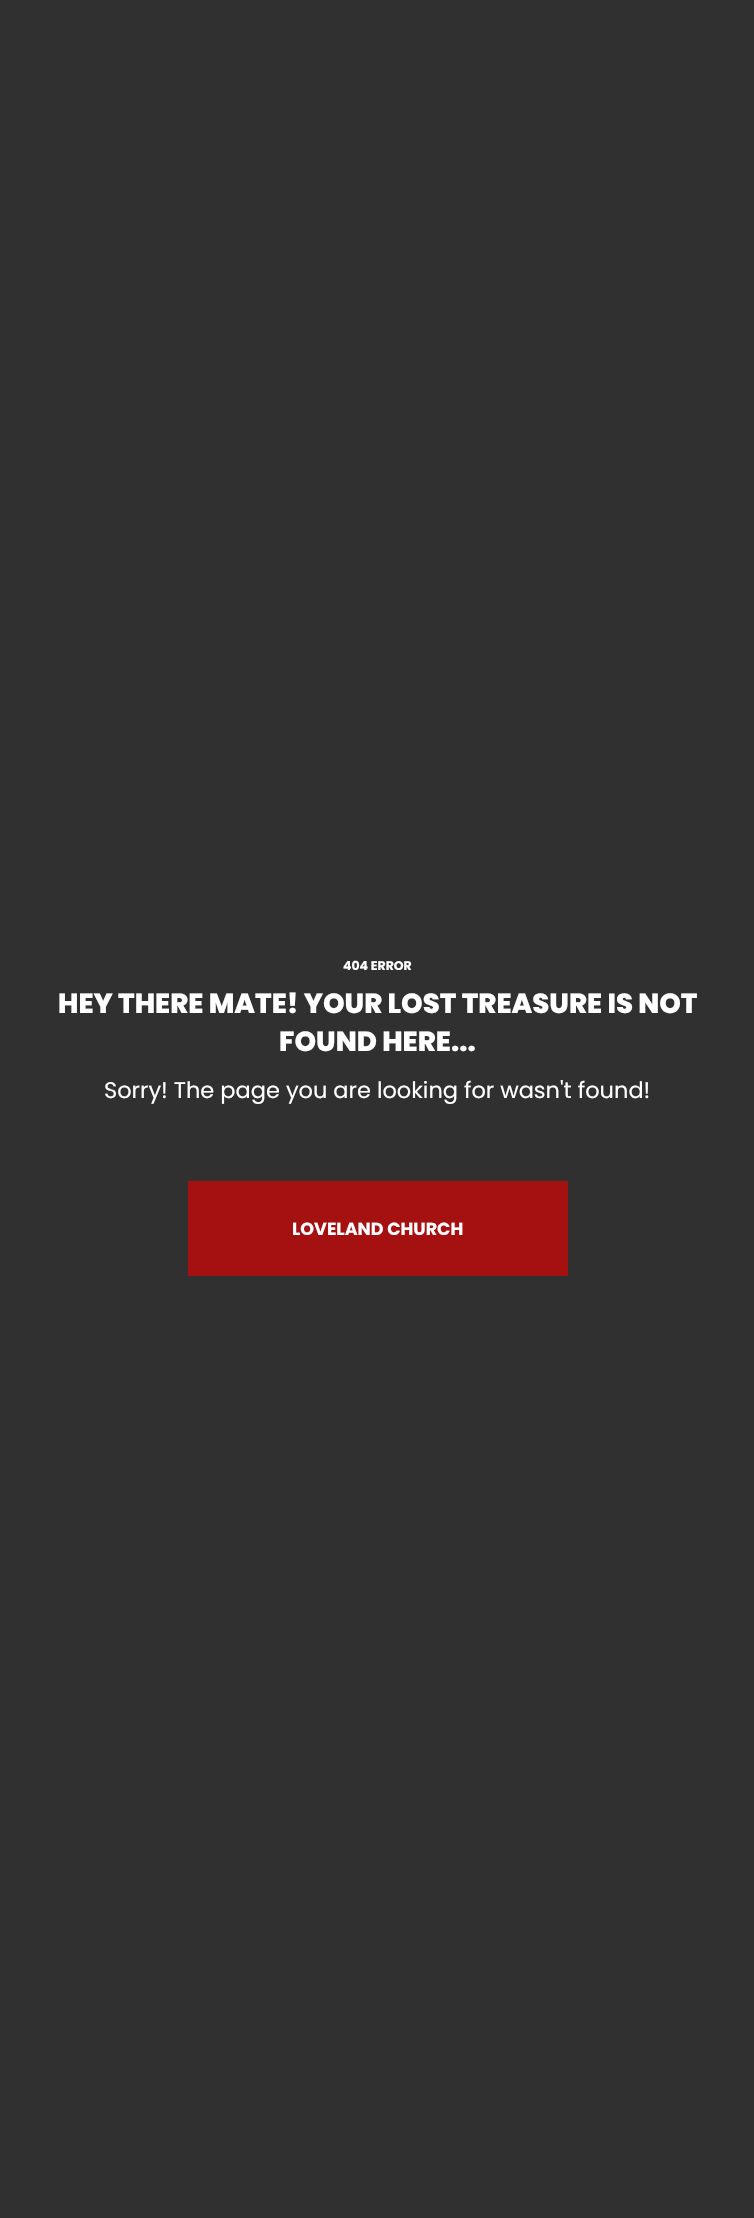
#include "include/core/SkBlurTypes.h"
#include "include/core/SkCanvas.h"
#include "include/core/SkData.h"
#include "include/core/SkFont.h"
#include "include/core/SkFontMgr.h"
#include "include/core/SkImage.h"
#include "include/core/SkMaskFilter.h"
#include "include/core/SkPaint.h"
#include "include/core/SkPathBuilder.h"
#include "include/core/SkTextBlob.h"
#include "include/effects/SkDashPathEffect.h"
#include "include/effects/SkGradientShader.h"
#include "include/utils/SkParsePath.h"

extern sk_sp<SkFontMgr> fontMgr;

void draw(SkCanvas* canvas) {
    SkPaint p;
    p.setAntiAlias(true);
    auto font = [&](const char* family, int weight, float size, bool italic = false) {
        SkFontStyle style(weight, SkFontStyle::kNormal_Width,
            italic ? SkFontStyle::kItalic_Slant : SkFontStyle::kUpright_Slant);
        SkFont result(fontMgr->matchFamilyStyle(family, style), size);
        result.setSubpixel(true);
        return result;
    };
    canvas->clear(0xFF303030);
    auto font1 = font("Poppins", 700, 12.5f);
    p.setColor(0xFFFFFFFF);
    canvas->drawString("404 ERROR", 343, 970, font1, p);
    auto font2 = font("Poppins", 800, 27.5f);
    canvas->drawString("HEY THERE MATE! YOUR LOST TREASURE IS NOT", 58, 1013, font2, p);
    canvas->drawString("FOUND HERE...", 279, 1051, font2, p);
    auto font3 = font("Poppins", 400, 22.5f);
    canvas->drawString("Sorry! The page you are looking for wasn't found!", 104, 1098, font3, p);
    p.setColor(0xFFA51010);
    canvas->drawRect(SkRect::MakeLTRB(188, 1181, 568, 1276), p);
    auto font4 = font("Poppins", 700, 17.5f);
    p.setColor(0xFFFFFFFF);
    canvas->drawString("LOVELAND CHURCH", 292, 1235, font4, p);
}
